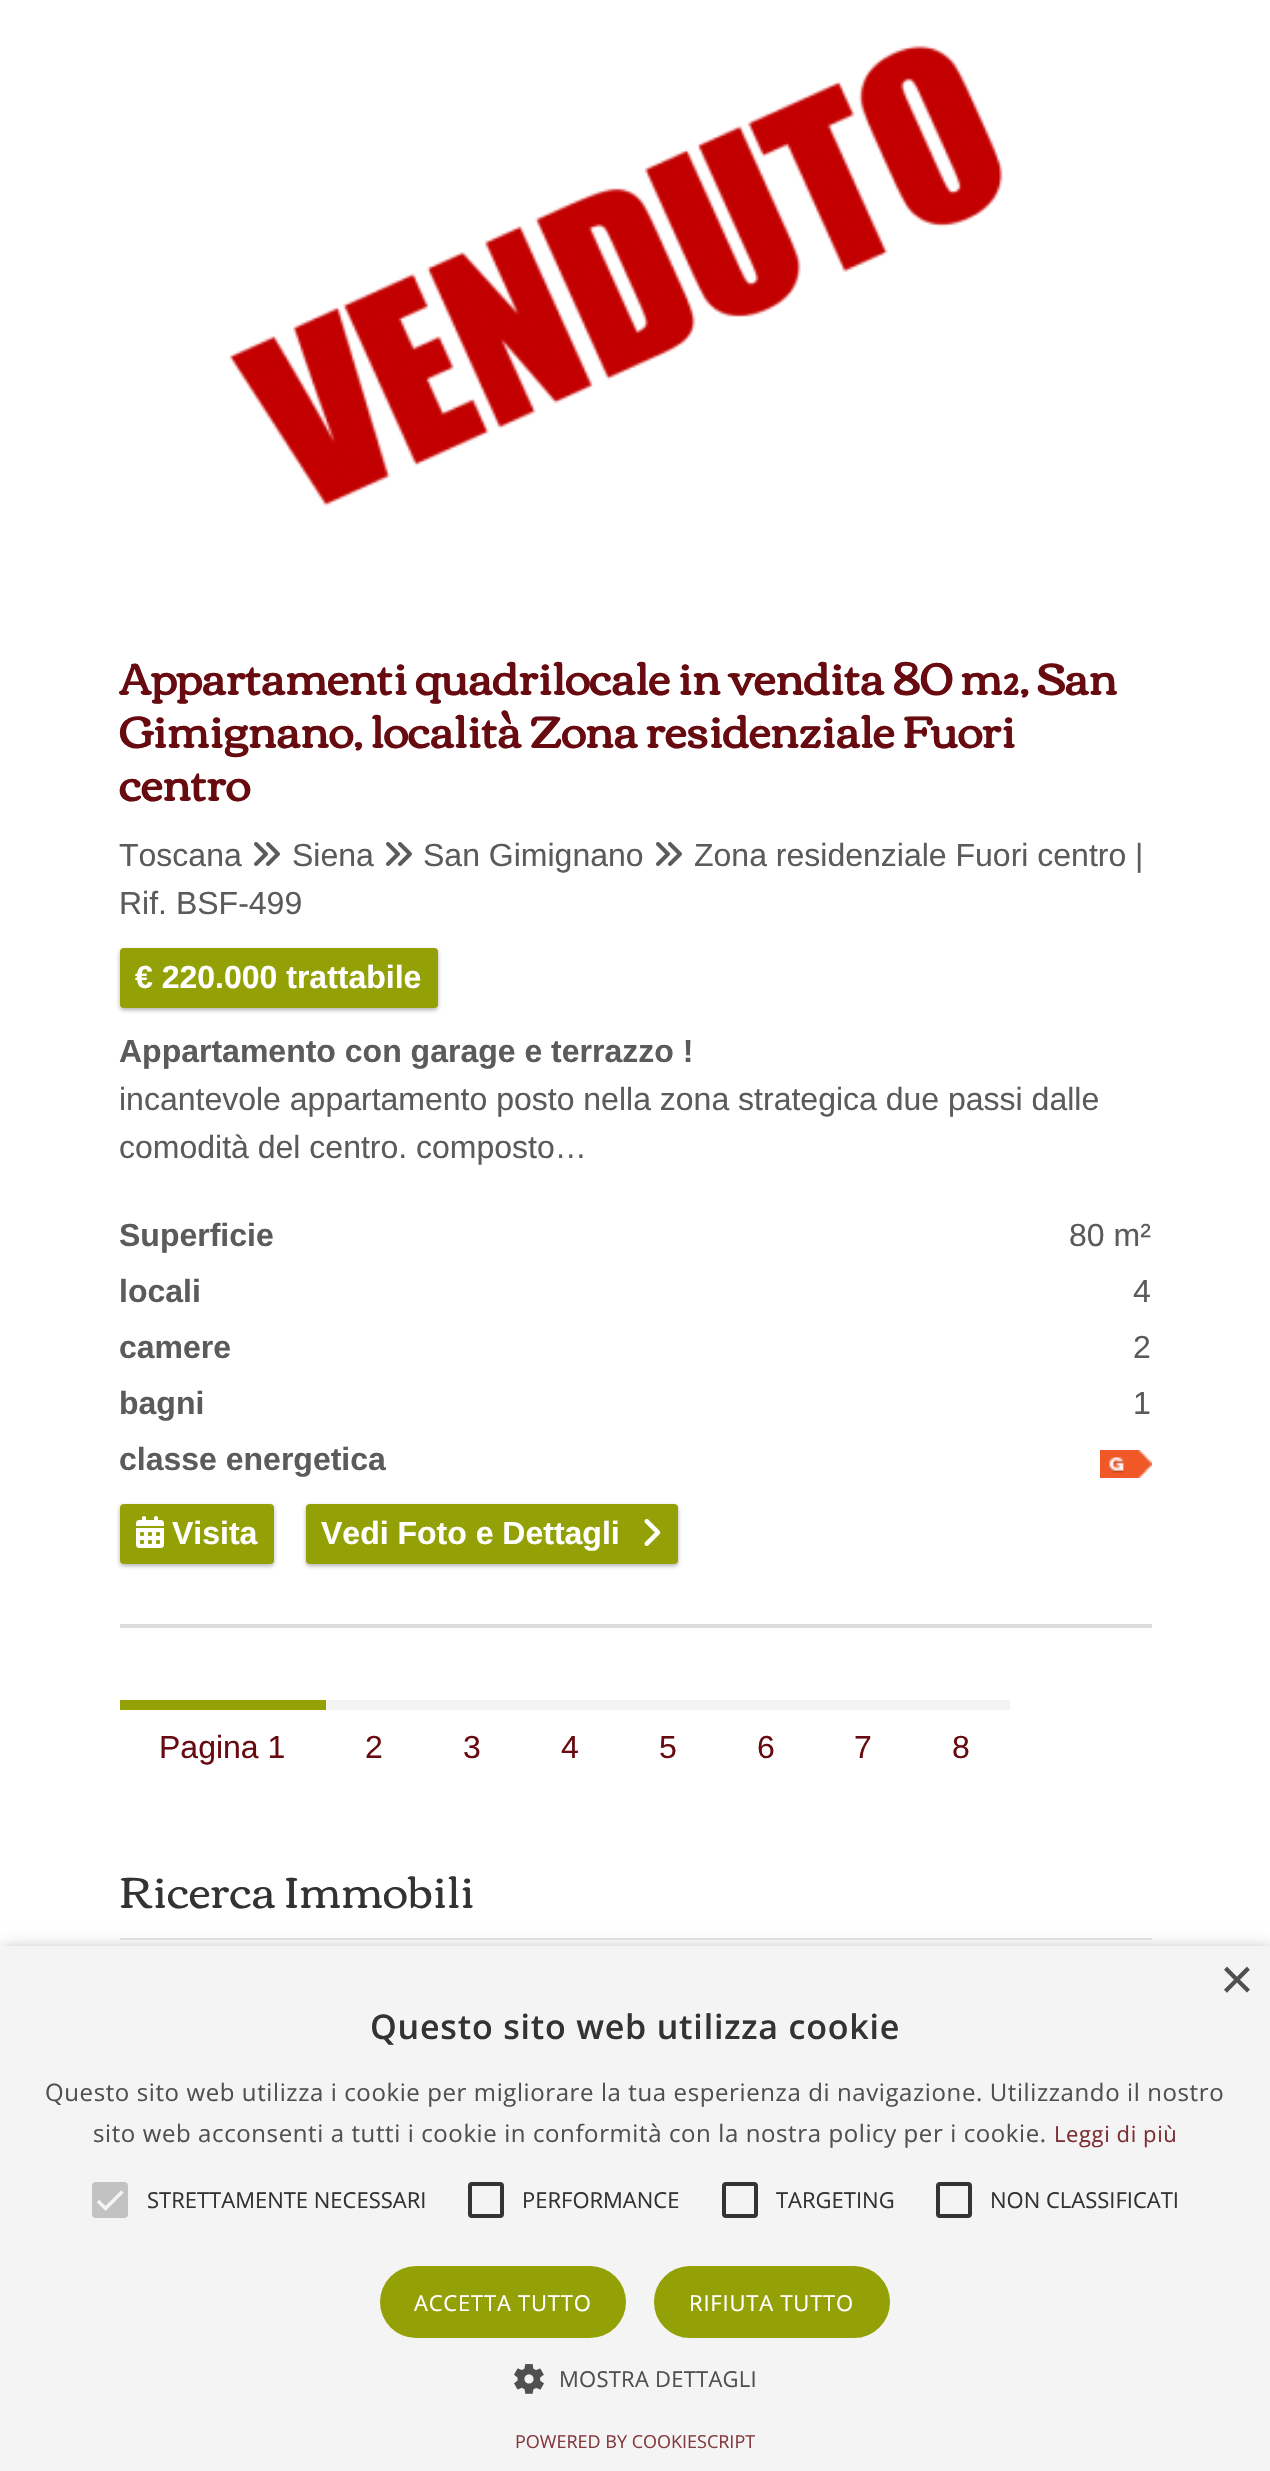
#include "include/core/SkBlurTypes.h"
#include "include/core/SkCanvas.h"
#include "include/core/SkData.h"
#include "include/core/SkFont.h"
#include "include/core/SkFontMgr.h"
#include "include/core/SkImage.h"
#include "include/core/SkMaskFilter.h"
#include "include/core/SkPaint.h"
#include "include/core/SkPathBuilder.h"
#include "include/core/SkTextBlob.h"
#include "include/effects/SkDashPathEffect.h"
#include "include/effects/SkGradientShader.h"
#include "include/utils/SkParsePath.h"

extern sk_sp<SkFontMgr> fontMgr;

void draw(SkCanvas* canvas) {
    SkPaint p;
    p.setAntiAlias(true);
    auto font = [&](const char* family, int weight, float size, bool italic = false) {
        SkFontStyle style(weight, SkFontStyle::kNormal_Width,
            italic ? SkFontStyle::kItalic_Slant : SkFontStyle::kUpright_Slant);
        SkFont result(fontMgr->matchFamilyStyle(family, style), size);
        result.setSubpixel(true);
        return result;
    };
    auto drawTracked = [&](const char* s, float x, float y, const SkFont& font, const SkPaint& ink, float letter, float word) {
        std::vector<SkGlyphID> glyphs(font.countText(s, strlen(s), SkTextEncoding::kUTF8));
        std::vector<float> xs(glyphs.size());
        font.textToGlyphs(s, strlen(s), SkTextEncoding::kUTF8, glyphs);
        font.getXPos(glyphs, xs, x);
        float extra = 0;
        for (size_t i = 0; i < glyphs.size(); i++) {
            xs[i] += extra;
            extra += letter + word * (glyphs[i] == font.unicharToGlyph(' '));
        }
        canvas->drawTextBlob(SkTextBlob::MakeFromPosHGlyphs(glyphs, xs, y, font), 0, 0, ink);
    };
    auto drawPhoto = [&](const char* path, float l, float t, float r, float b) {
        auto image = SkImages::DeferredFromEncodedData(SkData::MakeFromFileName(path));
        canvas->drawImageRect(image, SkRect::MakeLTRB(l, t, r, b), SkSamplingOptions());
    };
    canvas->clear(0xFFFFFFFF);
    p.setColor(0xFFDDDDDD);
    canvas->drawRect(SkRect::MakeLTRB(120, 1624, 1152, 1628), p);
    drawPhoto("media/1.png", 229, 45, 1003, 507);
    auto font1 = font("Corben", 700, 44);
    p.setColor(0xFF680B11);
    {
        const struct { const char* s; float x, y; } items[] = {
            {"Appartamenti quadrilocale in vendita 80 m², San", 119, 695},
            {"Gimignano, località Zona residenziale Fuori", 119, 748},
            {"centro", 119, 801},
        };
        for (auto [s, x, y] : items) {
            canvas->drawString(s, x, y, font1, p);
        }
    }
    auto font2 = font("Liberation Sans", 400, 32);
    p.setColor(0xFF5C5B5C);
    canvas->drawString("Toscana", 119, 866, font2, p);
    drawPhoto("media/2.png", 254, 842, 280, 866);
    canvas->drawString("Siena", 292, 866, font2, p);
    drawPhoto("media/2.png", 386, 842, 412, 866);
    canvas->drawString("San Gimignano", 423, 866, font2, p);
    drawPhoto("media/2.png", 656, 842, 682, 866);
    canvas->drawString("Zona residenziale Fuori centro |", 694, 866, font2, p);
    canvas->drawString("Rif. BSF-499", 119, 914, font2, p);
    p.setColor(0x4D000000);
    p.setMaskFilter(SkMaskFilter::MakeBlur(kNormal_SkBlurStyle, 2));
    canvas->drawRoundRect(SkRect::MakeLTRB(120, 950, 438, 1010), 4, 4, p);
    p.setMaskFilter(nullptr);
    p.setColor(0xFF94A106);
    canvas->drawRoundRect(SkRect::MakeLTRB(120, 948, 438, 1008), 4, 4, p);
    auto font3 = font("Liberation Sans", 700, 32);
    p.setColor(0xFFFFFFFF);
    canvas->drawString("€ 220.000 trattabile", 135, 988, font3, p);
    p.setColor(0xFF5C5B5C);
    canvas->drawString("Appartamento con garage e terrazzo !", 119, 1062, font3, p);
    canvas->drawString("incantevole appartamento posto nella zona strategica due passi dalle", 119, 1110, font2, p);
    canvas->drawString("comodità del centro. composto…", 119, 1158, font2, p);
    canvas->drawString("Superficie", 119, 1246, font3, p);
    canvas->drawString("80 m²", 1069, 1246, font2, p);
    canvas->drawString("locali", 119, 1302, font3, p);
    canvas->drawString("4", 1133, 1302, font2, p);
    canvas->drawString("camere", 119, 1358, font3, p);
    canvas->drawString("2", 1133, 1358, font2, p);
    canvas->drawString("bagni", 119, 1414, font3, p);
    canvas->drawString("1", 1133, 1414, font2, p);
    canvas->drawString("classe energetica", 119, 1470, font3, p);
    drawPhoto("media/3.png", 1100, 1450, 1152, 1478);
    p.setColor(0x4D000000);
    p.setMaskFilter(SkMaskFilter::MakeBlur(kNormal_SkBlurStyle, 2));
    canvas->drawRoundRect(SkRect::MakeLTRB(120, 1506, 274, 1566), 4, 4, p);
    p.setMaskFilter(nullptr);
    p.setColor(0xFF94A106);
    canvas->drawRoundRect(SkRect::MakeLTRB(120, 1504, 274, 1564), 4, 4, p);
    drawPhoto("media/4.png", 136, 1516, 164, 1548);
    p.setColor(0xFFFFFFFF);
    canvas->drawString("Visita", 172, 1544, font3, p);
    p.setColor(0x4D000000);
    p.setMaskFilter(SkMaskFilter::MakeBlur(kNormal_SkBlurStyle, 2));
    canvas->drawRoundRect(SkRect::MakeLTRB(306, 1506, 678, 1566), 4, 4, p);
    p.setMaskFilter(nullptr);
    p.setColor(0xFF94A106);
    canvas->drawRoundRect(SkRect::MakeLTRB(306, 1504, 678, 1564), 4, 4, p);
    p.setColor(0xFFFFFFFF);
    canvas->drawString("Vedi Foto e Dettagli", 321, 1544, font3, p);
    drawPhoto("media/5.png", 644, 1519, 661, 1546);
    p.setColor(0xFF680B11);
    canvas->drawString("Pagina 1", 159, 1758, font2, p);
    p.setColor(0xFF94A106);
    canvas->drawRect(SkRect::MakeLTRB(120, 1700, 326, 1710), p);
    p.setColor(0xFF680B11);
    canvas->drawString("2", 365, 1758, font2, p);
    p.setColor(0xFFF3F3F3);
    canvas->drawRect(SkRect::MakeLTRB(326, 1700, 1010, 1710), p);
    p.setColor(0xFF680B11);
    {
        const struct { const char* s; float x, y; } items[] = {
            {"3", 463, 1758},
            {"4", 561, 1758},
            {"5", 659, 1758},
            {"6", 757, 1758},
            {"7", 854, 1758},
            {"8", 952, 1758},
        };
        for (auto [s, x, y] : items) {
            canvas->drawString(s, x, y, font2, p);
        }
    }
    p.setColor(0xFFE6E6E6);
    canvas->drawRect(SkRect::MakeLTRB(120, 1938, 1152, 1940), p);
    auto font4 = font("Corben", 400, 44);
    p.setColor(0xFF333333);
    canvas->drawString("Ricerca Immobili", 119, 1908, font4, p);
    p.setColor(0x59000000);
    p.setMaskFilter(SkMaskFilter::MakeBlur(kNormal_SkBlurStyle, 8));
    canvas->drawRect(SkRect::MakeLTRB(2, 1950, 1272, 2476), p);
    p.setMaskFilter(nullptr);
    p.setColor(0xFFF4F4F4);
    canvas->drawRect(SkRect::MakeLTRB(0, 1946, 1270, 2471), p);
    auto font5 = font("Liberation Sans", 400, 58);
    p.setColor(0xFF505050);
    canvas->drawString("×", 1220, 1999, font5, p);
    auto font6 = font("Open Sans", 600, 34);
    p.setColor(0xFF333333);
    drawTracked("Questo sito web utilizza cookie", 370, 2039, font6, p, 0.8f, 0);
    auto font7 = font("Open Sans", 400, 24);
    p.setColor(0xFF505050);
    drawTracked("Questo sito web utilizza i cookie per migliorare la tua esperienza di navigazione. Utilizzando il nostro", 45, 2101, font7, p, 0.6f, 0);
    drawTracked("sito web acconsenti a tutti i cookie in conformità con la nostra policy per i cookie.", 93, 2142, font7, p, 0.6f, 0);
    auto font8 = font("Open Sans", 400, 22);
    p.setColor(0xFF7D2E33);
    drawTracked("Leggi di più", 1054, 2142, font8, p, 0.6f, 0);
    p.setColor(0xFFC2C2C2);
    canvas->drawRoundRect(SkRect::MakeLTRB(92, 2182, 128, 2218), 4, 4, p);
    p.setStyle(SkPaint::kStroke_Style);
    p.setStrokeWidth(3.6f);
    p.setColor(0xFFF4F4F4);
    canvas->drawPath(SkPathBuilder().moveTo(98, 2201).lineTo(105.5f, 2208.5f).lineTo(122.5f, 2191.5f).detach(), p);
    p.setStyle(SkPaint::kFill_Style);
    p.setColor(0xFF333333);
    canvas->drawString("STRETTAMENTE NECESSARI", 147, 2208, font8, p);
    p.setStyle(SkPaint::kStroke_Style);
    p.setStrokeWidth(4);
    canvas->drawRoundRect(SkRect::MakeLTRB(470, 2184, 502, 2216), 2, 2, p);
    p.setStyle(SkPaint::kFill_Style);
    canvas->drawString("PERFORMANCE", 522, 2208, font8, p);
    p.setStyle(SkPaint::kStroke_Style);
    canvas->drawRoundRect(SkRect::MakeLTRB(724, 2184, 756, 2216), 2, 2, p);
    p.setStyle(SkPaint::kFill_Style);
    canvas->drawString("TARGETING", 776, 2208, font8, p);
    p.setStyle(SkPaint::kStroke_Style);
    canvas->drawRoundRect(SkRect::MakeLTRB(938, 2184, 970, 2216), 2, 2, p);
    p.setStyle(SkPaint::kFill_Style);
    canvas->drawString("NON CLASSIFICATI", 990, 2208, font8, p);
    p.setColor(0xFF94A106);
    canvas->drawRoundRect(SkRect::MakeLTRB(380, 2266, 626, 2338), 36, 36, p);
    p.setColor(0xFFFFFFFF);
    drawTracked("ACCETTA TUTTO", 414, 2311, font8, p, 0.8f, 0);
    p.setColor(0xFF94A106);
    canvas->drawRoundRect(SkRect::MakeLTRB(655, 2267, 889, 2337), 35, 35, p);
    p.setStyle(SkPaint::kStroke_Style);
    p.setStrokeWidth(2);
    canvas->drawRoundRect(SkRect::MakeLTRB(655, 2267, 889, 2337), 35, 35, p);
    p.setStyle(SkPaint::kFill_Style);
    p.setColor(0xFFFFFFFF);
    drawTracked("RIFIUTA TUTTO", 689, 2311, font8, p, 0.8f, 0);
    drawPhoto("media/6.png", 514, 2364, 544, 2394);
    p.setColor(0xFF505050);
    drawTracked("MOSTRA DETTAGLI", 559, 2387, font8, p, 0.25f, 0);
    auto font9 = font("Open Sans", 400, 18);
    p.setColor(0xFF843A3E);
    canvas->drawString("POWERED BY COOKIESCRIPT", 515, 2448, font9, p);
}
